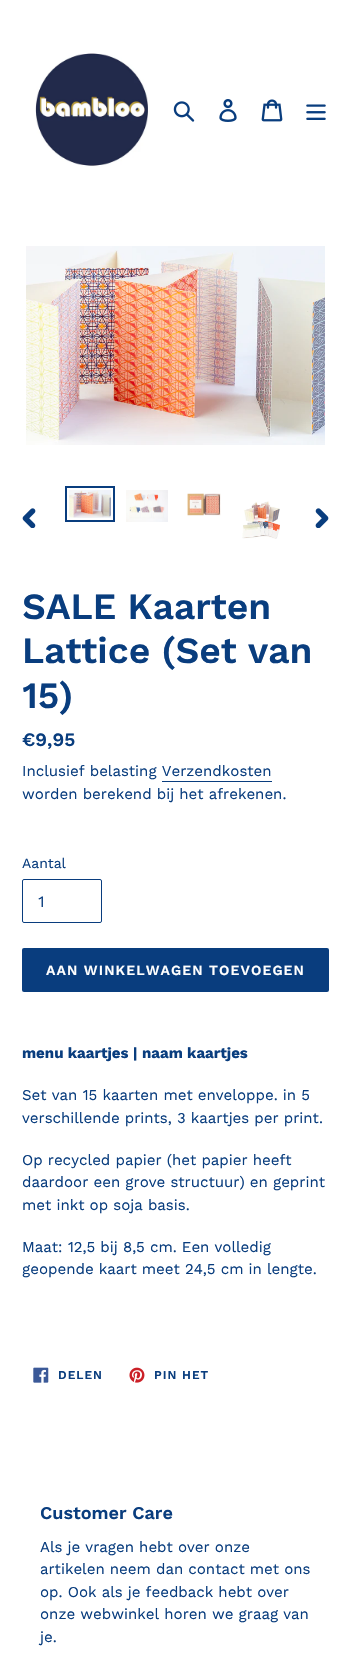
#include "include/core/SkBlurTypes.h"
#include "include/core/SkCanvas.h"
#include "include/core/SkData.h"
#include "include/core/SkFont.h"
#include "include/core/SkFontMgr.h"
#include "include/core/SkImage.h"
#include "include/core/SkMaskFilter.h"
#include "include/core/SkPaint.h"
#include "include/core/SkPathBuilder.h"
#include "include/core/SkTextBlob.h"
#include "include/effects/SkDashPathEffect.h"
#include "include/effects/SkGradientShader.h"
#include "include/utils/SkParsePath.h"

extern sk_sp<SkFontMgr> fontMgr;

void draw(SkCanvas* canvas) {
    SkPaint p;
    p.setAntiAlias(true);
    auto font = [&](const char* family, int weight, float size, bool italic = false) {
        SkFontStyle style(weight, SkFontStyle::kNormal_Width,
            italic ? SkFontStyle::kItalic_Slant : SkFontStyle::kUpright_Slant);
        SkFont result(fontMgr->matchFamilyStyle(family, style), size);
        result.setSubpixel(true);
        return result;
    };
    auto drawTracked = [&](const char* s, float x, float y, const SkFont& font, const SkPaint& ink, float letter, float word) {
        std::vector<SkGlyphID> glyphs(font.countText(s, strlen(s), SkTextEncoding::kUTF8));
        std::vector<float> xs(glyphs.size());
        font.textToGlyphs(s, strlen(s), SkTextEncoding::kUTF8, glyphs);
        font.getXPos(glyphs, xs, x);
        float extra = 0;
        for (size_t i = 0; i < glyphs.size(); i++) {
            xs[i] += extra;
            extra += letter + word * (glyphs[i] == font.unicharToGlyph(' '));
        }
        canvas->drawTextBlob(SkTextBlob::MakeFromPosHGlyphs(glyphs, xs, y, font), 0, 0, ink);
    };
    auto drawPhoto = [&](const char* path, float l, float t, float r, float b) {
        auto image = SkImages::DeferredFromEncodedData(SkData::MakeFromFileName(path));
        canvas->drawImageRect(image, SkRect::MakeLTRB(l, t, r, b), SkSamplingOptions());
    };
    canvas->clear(0xFFFFFFFF);
    drawPhoto("media/1.png", 35, 53, 148, 167);
    drawPhoto("media/2.png", 173, 101, 195, 122);
    drawPhoto("media/3.png", 219, 99, 237, 122);
    drawPhoto("media/4.png", 261, 99, 283, 122);
    drawPhoto("media/5.png", 306, 104, 326, 120);
    drawPhoto("media/6.png", 26, 246, 325, 445);
    drawPhoto("media/7.png", 22, 508, 36, 528);
    p.setStyle(SkPaint::kStroke_Style);
    p.setStrokeWidth(2);
    p.setColor(0xFF093D7E);
    canvas->drawRect(SkRect::MakeLTRB(66, 487, 114, 521), p);
    drawPhoto("media/8.png", 69, 490, 111, 518);
    drawPhoto("media/9.png", 126, 490, 168, 522);
    drawPhoto("media/10.png", 187, 493, 221, 516);
    drawPhoto("media/11.png", 242, 501, 280, 539);
    drawPhoto("media/12.png", 315, 508, 329, 528);
    auto font1 = font("Work Sans", 600, 37);
    p.setStyle(SkPaint::kFill_Style);
    {
        const struct { const char* s; float x, y; } items[] = {
            {"SALE Kaarten", 22, 619},
            {"Lattice (Set van", 22, 663},
            {"15)", 22, 708},
        };
        for (auto [s, x, y] : items) {
            canvas->drawString(s, x, y, font1, p);
        }
    }
    auto font2 = font("Work Sans", 600, 19);
    canvas->drawString("€9,95", 22, 746, font2, p);
    auto font3 = font("Work Sans", 400, 15);
    canvas->drawString("Inclusief belasting Verzendkosten", 22, 776, font3, p);
    canvas->drawRect(SkRect::MakeLTRB(162, 781, 272, 782), p);
    canvas->drawString("worden berekend bij het afrekenen.", 22, 799, font3, p);
    auto font4 = font("Work Sans", 400, 14);
    canvas->drawString("Aantal", 22, 868, font4, p);
    p.setStyle(SkPaint::kStroke_Style);
    p.setStrokeWidth(1);
    canvas->drawRoundRect(SkRect::MakeLTRB(22.5f, 879.5f, 101.5f, 922.5f), 1.5f, 1.5f, p);
    auto font5 = font("Work Sans", 400, 16);
    p.setStyle(SkPaint::kFill_Style);
    canvas->drawString("1", 38, 907, font5, p);
    canvas->drawRoundRect(SkRect::MakeLTRB(22, 948, 329, 992), 2, 2, p);
    auto font6 = font("Work Sans", 600, 14);
    p.setColor(0xFFFFFFFF);
    drawTracked("AAN WINKELWAGEN TOEVOEGEN", 46, 975, font6, p, 1.1f, 0);
    auto font7 = font("Work Sans", 700, 15);
    p.setColor(0xFF093D7E);
    canvas->drawString("menu kaartjes | naam kaartjes", 22, 1058, font7, p);
    {
        const struct { const char* s; float x, y; } items[] = {
            {"Set van 15 kaarten met enveloppe. in 5", 22, 1100},
            {"verschillende prints, 3 kaartjes per print.", 22, 1123},
            {"Op recycled papier (het papier heeft", 22, 1165},
            {"daardoor een grove structuur) en geprint", 22, 1187},
            {"met inkt op soja basis.", 22, 1210},
            {"Maat: 12,5 bij 8,5 cm. Een volledig", 22, 1252},
            {"geopende kaart meet 24,5 cm in lengte.", 22, 1274},
        };
        for (auto [s, x, y] : items) {
            canvas->drawString(s, x, y, font3, p);
        }
    }
    drawPhoto("media/13.png", 33, 1367, 49, 1383);
    auto font8 = font("Work Sans", 600, 12);
    drawTracked("DELEN", 58, 1379, font8, p, 1, 0);
    drawPhoto("media/14.png", 129, 1367, 145, 1383);
    drawTracked("PIN HET", 154, 1379, font8, p, 1, 0);
    auto font9 = font("Work Sans", 600, 18);
    canvas->drawString("Customer Care", 40, 1519, font9, p);
    {
        const struct { const char* s; float x, y; } items[] = {
            {"Als je vragen hebt over onze", 40, 1552},
            {"artikelen neem dan contact met ons", 40, 1574},
            {"op. Ook als je feedback hebt over", 40, 1597},
            {"onze webwinkel horen we graag van", 40, 1619},
            {"je.", 40, 1642},
        };
        for (auto [s, x, y] : items) {
            canvas->drawString(s, x, y, font3, p);
        }
    }
}
